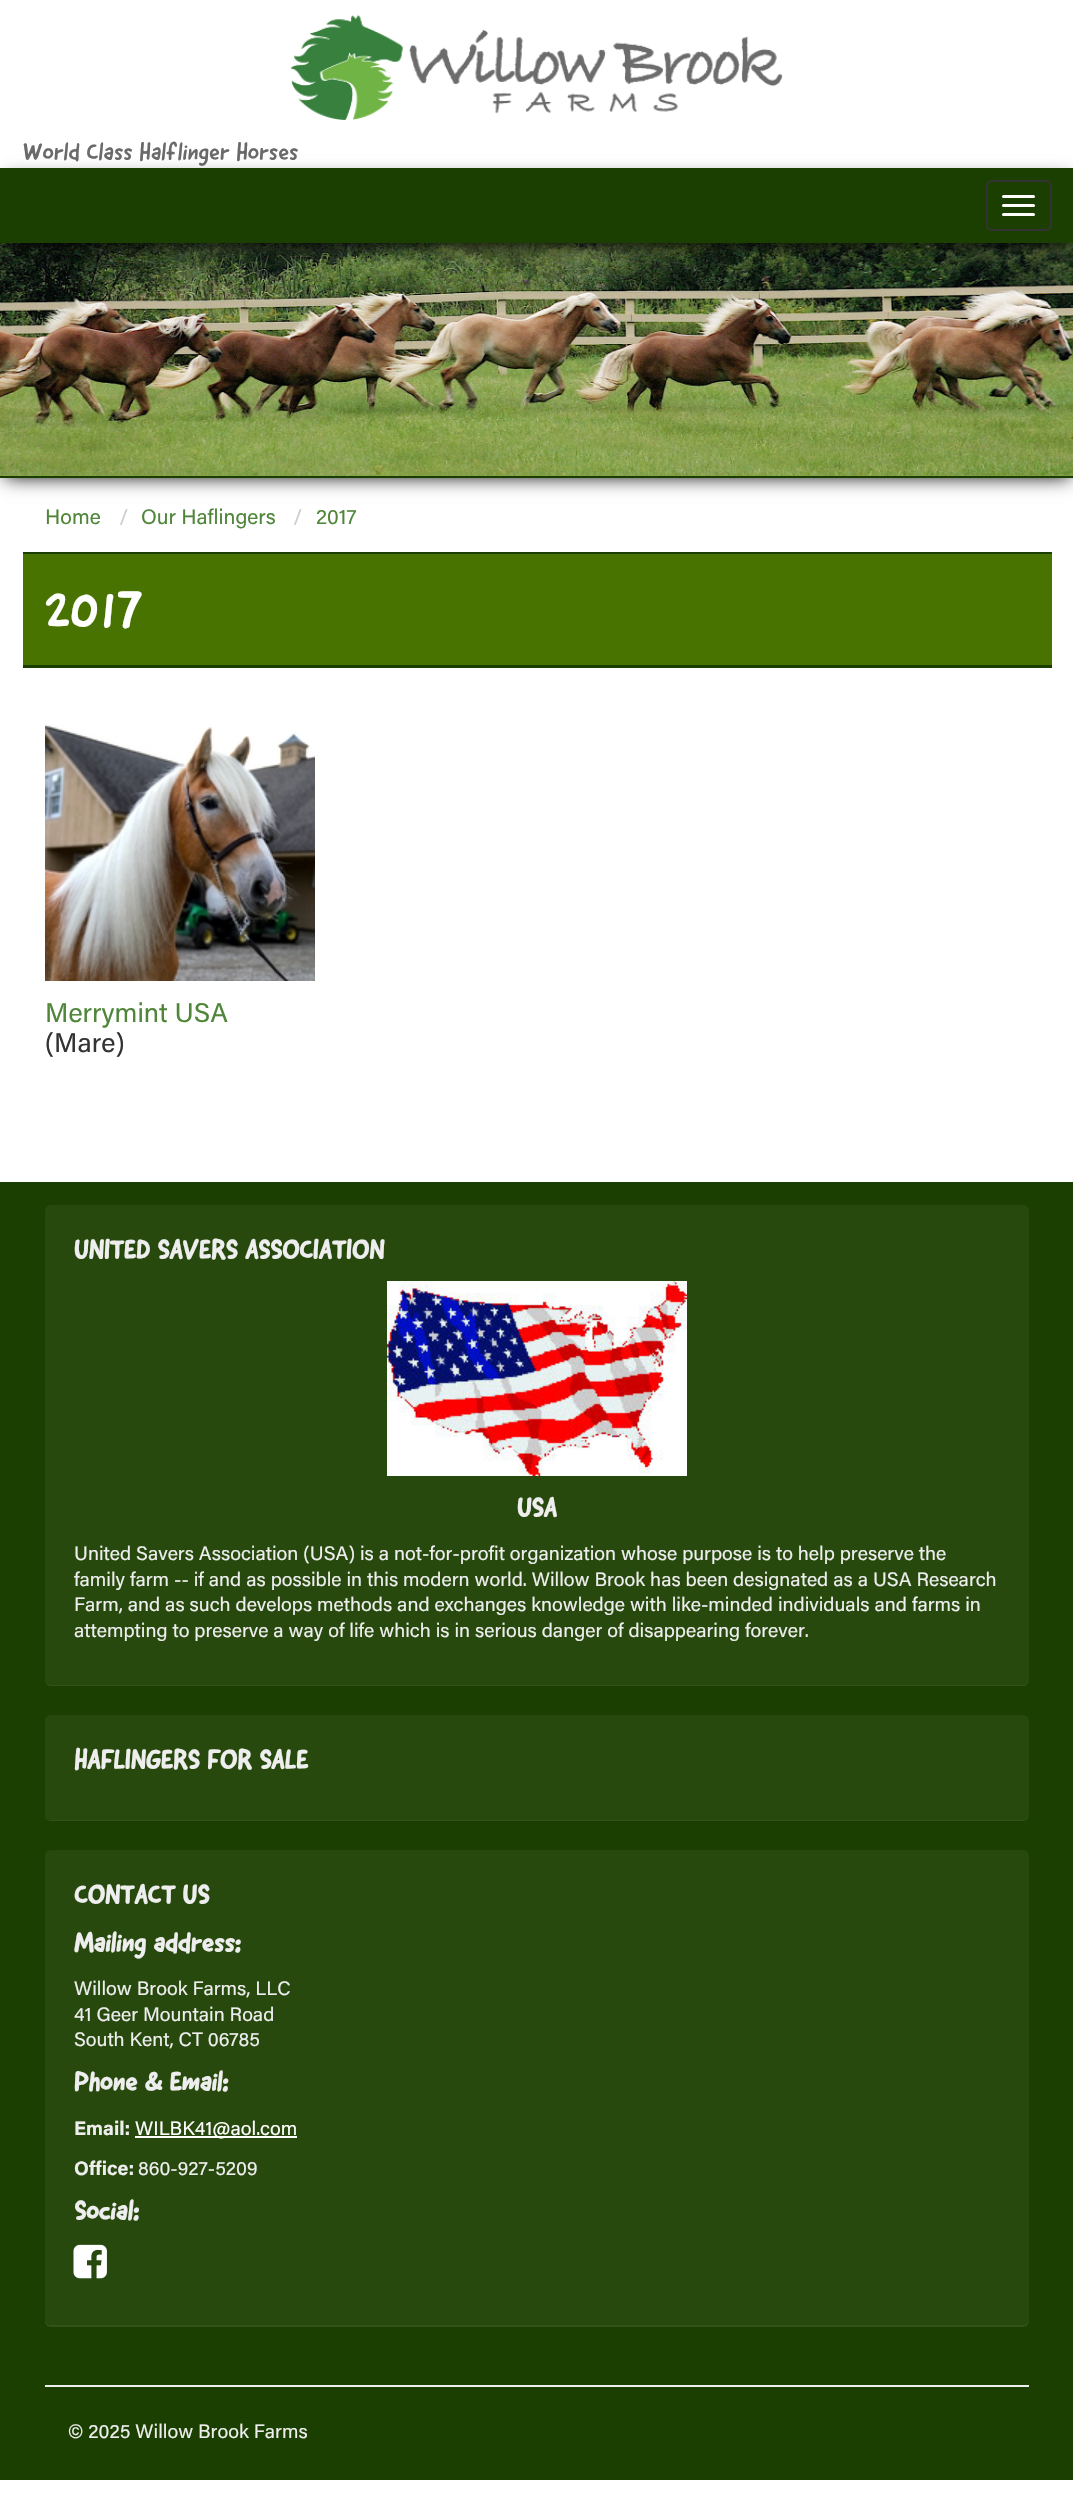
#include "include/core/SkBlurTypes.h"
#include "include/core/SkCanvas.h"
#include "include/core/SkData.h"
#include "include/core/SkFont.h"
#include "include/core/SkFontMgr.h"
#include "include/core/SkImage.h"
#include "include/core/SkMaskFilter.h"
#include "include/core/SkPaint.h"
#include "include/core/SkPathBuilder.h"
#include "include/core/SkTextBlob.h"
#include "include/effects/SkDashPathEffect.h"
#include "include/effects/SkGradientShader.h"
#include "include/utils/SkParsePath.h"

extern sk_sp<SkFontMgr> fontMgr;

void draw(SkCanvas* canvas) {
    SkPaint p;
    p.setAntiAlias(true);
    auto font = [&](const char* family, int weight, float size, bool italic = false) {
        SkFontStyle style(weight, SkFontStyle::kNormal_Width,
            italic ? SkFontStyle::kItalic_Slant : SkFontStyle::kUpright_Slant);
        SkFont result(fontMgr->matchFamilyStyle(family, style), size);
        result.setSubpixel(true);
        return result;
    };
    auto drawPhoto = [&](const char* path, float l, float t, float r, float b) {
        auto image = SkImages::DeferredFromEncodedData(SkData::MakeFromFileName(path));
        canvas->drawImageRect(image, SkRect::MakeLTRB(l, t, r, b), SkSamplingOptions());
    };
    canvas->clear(0xFFFFFFFF);
    drawPhoto("media/1.png", 291, 15, 783, 120);
    auto font1 = font("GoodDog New", 400, 24);
    p.setColor(0xFF6A6A6A);
    canvas->drawString("World Class Halflinger Horses", 23, 160, font1, p);
    p.setColor(0xFF000000);
    p.setMaskFilter(SkMaskFilter::MakeBlur(kNormal_SkBlurStyle, 9));
    canvas->drawRect(SkRect::MakeLTRB(5, 252, 1070, 477), p);
    p.setMaskFilter(nullptr);
    p.setColor(0xFF7DA043);
    canvas->drawRect(SkRect::MakeLTRB(0, 475, 1073, 476), p);
    drawPhoto("media/2.png", 0, 243, 1073, 476);
    p.setColor(0xFF000000);
    p.setMaskFilter(SkMaskFilter::MakeBlur(kNormal_SkBlurStyle, 9));
    canvas->drawRect(SkRect::MakeLTRB(5, 180, 1070, 246), p);
    p.setMaskFilter(nullptr);
    p.setColor(0xFF1B3F00);
    canvas->drawRect(SkRect::MakeLTRB(0, 168, 1073, 243), p);
    p.setStyle(SkPaint::kStroke_Style);
    p.setStrokeWidth(2);
    p.setColor(0xFF333333);
    canvas->drawRoundRect(SkRect::MakeLTRB(987, 181, 1051, 230), 5, 5, p);
    p.setStyle(SkPaint::kFill_Style);
    p.setColor(0xFFFFFFFF);
    canvas->drawRoundRect(SkRect::MakeLTRB(1002, 195, 1035, 198), 1.5f, 1.5f, p);
    canvas->drawRoundRect(SkRect::MakeLTRB(1002, 204, 1035, 207), 1.5f, 1.5f, p);
    canvas->drawRoundRect(SkRect::MakeLTRB(1002, 213, 1035, 216), 1.5f, 1.5f, p);
    p.setColor(0xFF1B3F00);
    canvas->drawRect(SkRect::MakeLTRB(0, 476, 1073, 478), p);
    canvas->drawRect(SkRect::MakeLTRB(23, 552, 1052, 554), p);
    auto font2 = font("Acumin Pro", 400, 21);
    p.setColor(0xFF50863A);
    canvas->drawString("Home", 45, 524, font2, p);
    p.setColor(0xFFCCCCCC);
    canvas->drawString("/", 119, 524, font2, p);
    p.setColor(0xFF50863A);
    canvas->drawString("Our Haflingers", 141, 524, font2, p);
    p.setColor(0xFFCCCCCC);
    canvas->drawString("/", 293, 524, font2, p);
    p.setColor(0xFF50863A);
    canvas->drawString("2017", 316, 524, font2, p);
    p.setColor(0xFF497300);
    canvas->drawRect(SkRect::MakeLTRB(23, 554, 1052, 665), p);
    p.setColor(0xFF1B3F00);
    canvas->drawRect(SkRect::MakeLTRB(23, 665, 1052, 668), p);
    auto font3 = font("GoodDog New", 400, 54);
    p.setColor(0xFFFFFFFF);
    canvas->drawString("2017", 45, 628, font3, p);
    drawPhoto("media/3.png", 45, 724, 315, 981);
    auto font4 = font("Acumin Pro", 400, 27);
    p.setColor(0xFF50863A);
    canvas->drawString("Merrymint USA", 45, 1022, font4, p);
    p.setColor(0xFF333333);
    canvas->drawString("(Mare)", 45, 1052, font4, p);
    p.setColor(0xFF1B3F00);
    canvas->drawRect(SkRect::MakeLTRB(0, 1182, 1073, 2480), p);
    p.setColor(0xFF32521A);
    canvas->drawPath(SkPathBuilder().moveTo(45, 1678).lineTo(45, 1680).cubicTo(45, 1683, 48, 1686, 51, 1686).lineTo(1023, 1686).cubicTo(1026, 1686, 1029, 1683, 1029, 1680).lineTo(1029, 1678).cubicTo(1029, 1682, 1026, 1684, 1023, 1684).lineTo(51, 1684).cubicTo(48, 1684, 45, 1682, 45, 1678).close().detach(), p);
    p.setColor(0xFF27490D);
    canvas->drawRoundRect(SkRect::MakeLTRB(45, 1205, 1029, 1685), 6, 6, p);
    auto font5 = font("GoodDog New", 700, 27);
    p.setColor(0xFFEEEEEE);
    canvas->drawString("UNITED SAVERS ASSOCIATION", 74, 1259, font5, p);
    drawPhoto("media/4.png", 387, 1281, 687, 1476);
    canvas->drawString("USA", 517, 1517, font5, p);
    auto font6 = font("Acumin Pro", 400, 19.5f);
    {
        const struct { const char* s; float x, y; } items[] = {
            {"United Savers Association (USA) is a not-for-profit organization whose purpose is to help preserve the", 74, 1560},
            {"family farm -- if and as possible in this modern world. Willow Brook has been designated as a USA Research", 74, 1586},
            {"Farm, and as such develops methods and exchanges knowledge with like-minded individuals and farms in", 74, 1611},
            {"attempting to preserve a way of life which is in serious danger of disappearing forever.", 74, 1637},
        };
        for (auto [s, x, y] : items) {
            canvas->drawString(s, x, y, font6, p);
        }
    }
    p.setColor(0xFF32521A);
    canvas->drawPath(SkPathBuilder().moveTo(45, 1814).lineTo(45, 1815).cubicTo(45, 1818, 48, 1821, 51, 1821).lineTo(1023, 1821).cubicTo(1026, 1821, 1029, 1818, 1029, 1815).lineTo(1029, 1814).cubicTo(1029, 1817, 1026, 1820, 1023, 1820).lineTo(51, 1820).cubicTo(48, 1820, 45, 1817, 45, 1814).close().detach(), p);
    p.setColor(0xFF27490D);
    canvas->drawRoundRect(SkRect::MakeLTRB(45, 1715, 1029, 1820), 6, 6, p);
    p.setColor(0xFFEEEEEE);
    canvas->drawString("HAFLINGERS FOR SALE", 74, 1769, font5, p);
    p.setColor(0xFF32521A);
    canvas->drawPath(SkPathBuilder().moveTo(45, 2319).lineTo(45, 2321).cubicTo(45, 2324, 48, 2327, 51, 2327).lineTo(1023, 2327).cubicTo(1026, 2327, 1029, 2324, 1029, 2321).lineTo(1029, 2319).cubicTo(1029, 2322, 1026, 2325, 1023, 2325).lineTo(51, 2325).cubicTo(48, 2325, 45, 2322, 45, 2319).close().detach(), p);
    p.setColor(0xFF27490D);
    canvas->drawRoundRect(SkRect::MakeLTRB(45, 1850, 1029, 2325), 6, 6, p);
    p.setColor(0xFFEEEEEE);
    canvas->drawString("CONTACT US", 74, 1904, font5, p);
    canvas->drawString("Mailing address:", 74, 1952, font5, p);
    {
        const struct { const char* s; float x, y; } items[] = {
            {"Willow Brook Farms, LLC", 74, 1995},
            {"41 Geer Mountain Road", 74, 2021},
            {"South Kent, CT 06785", 74, 2046},
        };
        for (auto [s, x, y] : items) {
            canvas->drawString(s, x, y, font6, p);
        }
    }
    canvas->drawString("Phone & Email:", 74, 2091, font5, p);
    auto font7 = font("Acumin Pro", 700, 19.5f);
    canvas->drawString("Email:", 74, 2135, font7, p);
    p.setColor(0xFFFFFFFF);
    canvas->drawRect(SkRect::MakeLTRB(135, 2136, 297, 2138), p);
    canvas->drawString("WILBK41@aol.com", 135, 2135, font6, p);
    p.setColor(0xFFEEEEEE);
    canvas->drawString("Office:", 74, 2175, font7, p);
    canvas->drawString("860-927-5209", 138, 2175, font6, p);
    canvas->drawString("Social:", 74, 2220, font5, p);
    drawPhoto("media/5.png", 73, 2244, 107, 2279);
    canvas->drawRect(SkRect::MakeLTRB(45, 2385, 1029, 2387), p);
    canvas->drawString("© 2025 Willow Brook Farms", 68, 2438, font6, p);
}
